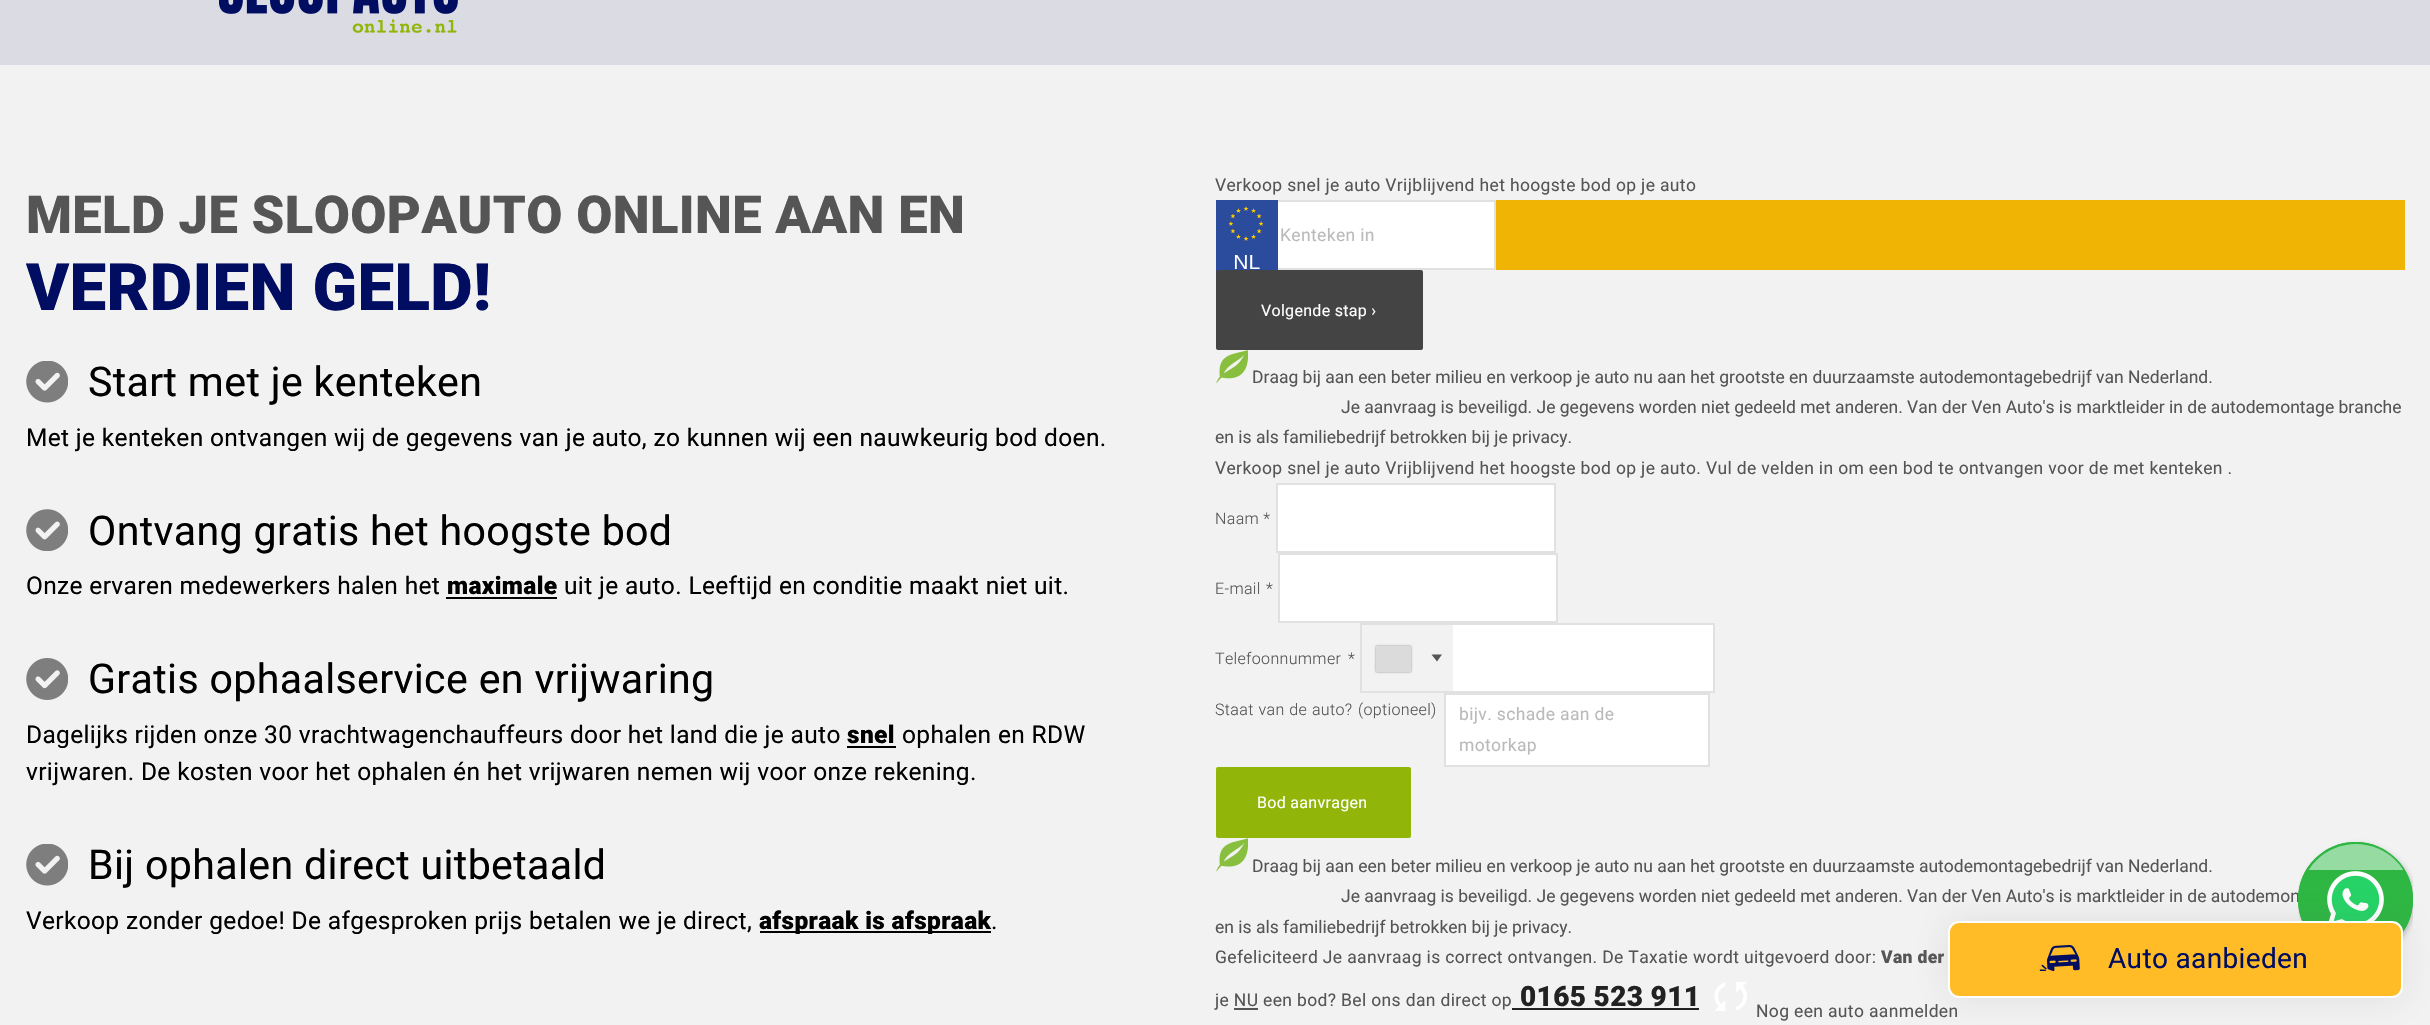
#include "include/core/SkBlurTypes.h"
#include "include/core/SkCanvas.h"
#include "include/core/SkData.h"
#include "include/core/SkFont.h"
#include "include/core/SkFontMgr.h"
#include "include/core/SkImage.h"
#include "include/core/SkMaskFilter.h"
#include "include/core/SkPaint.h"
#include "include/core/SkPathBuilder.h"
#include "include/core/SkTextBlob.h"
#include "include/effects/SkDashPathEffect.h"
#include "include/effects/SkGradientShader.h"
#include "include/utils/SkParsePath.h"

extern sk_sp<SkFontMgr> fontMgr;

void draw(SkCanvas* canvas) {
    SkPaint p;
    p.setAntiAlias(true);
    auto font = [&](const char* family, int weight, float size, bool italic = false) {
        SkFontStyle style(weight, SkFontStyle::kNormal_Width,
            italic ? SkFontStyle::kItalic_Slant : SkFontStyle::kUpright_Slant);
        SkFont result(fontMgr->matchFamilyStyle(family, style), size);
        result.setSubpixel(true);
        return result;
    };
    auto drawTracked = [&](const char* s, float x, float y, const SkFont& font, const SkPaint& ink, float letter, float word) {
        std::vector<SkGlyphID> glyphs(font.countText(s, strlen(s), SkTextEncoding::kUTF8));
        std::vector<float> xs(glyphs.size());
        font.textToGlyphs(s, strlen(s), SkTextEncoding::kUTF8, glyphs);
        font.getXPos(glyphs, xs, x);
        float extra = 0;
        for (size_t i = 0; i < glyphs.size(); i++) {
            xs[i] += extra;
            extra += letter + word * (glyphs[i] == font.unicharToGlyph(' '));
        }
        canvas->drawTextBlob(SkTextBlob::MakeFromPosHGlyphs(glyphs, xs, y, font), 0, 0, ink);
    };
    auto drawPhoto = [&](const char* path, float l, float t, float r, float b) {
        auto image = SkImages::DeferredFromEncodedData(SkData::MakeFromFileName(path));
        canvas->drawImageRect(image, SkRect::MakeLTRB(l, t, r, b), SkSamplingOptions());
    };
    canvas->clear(0xFFF2F2F2);
    p.setColor(0xFFDADBE3);
    canvas->drawRect(SkRect::MakeLTRB(0, 0, 2430, 65), p);
    drawPhoto("media/1.png", 219, 0, 458, 33);
    auto font1 = font("Roboto", 900, 52.5f);
    p.setColor(0xFF555555);
    drawTracked("MELD JE SLOOPAUTO ONLINE AAN EN", 26, 233, font1, p, 0.35f, 0);
    auto font2 = font("Roboto", 900, 65.5f);
    p.setColor(0xFF000D60);
    drawTracked("VERDIEN GELD!", 26, 310, font2, p, 0.35f, 0);
    drawPhoto("media/2.png", 26, 361, 68, 403);
    auto font3 = font("Roboto", 400, 41.1f);
    p.setColor(0xFF000000);
    drawTracked("Start met je kenteken", 88, 396, font3, p, 0.35f, 0);
    auto font4 = font("Roboto", 400, 24.5f);
    drawTracked("Met je kenteken ontvangen wij de gegevens van je auto, zo kunnen wij een nauwkeurig bod doen.", 26, 446, font4, p, 0.35f, 0);
    drawPhoto("media/3.png", 26, 509, 68, 551);
    drawTracked("Ontvang gratis het hoogste bod", 88, 545, font3, p, 0.35f, 0);
    drawTracked("Onze ervaren medewerkers halen het", 26, 594, font4, p, 0.35f, 0);
    auto font5 = font("Roboto", 900, 24.5f);
    drawTracked("maximale", 447, 594, font5, p, 0.35f, 0);
    canvas->drawRect(SkRect::MakeLTRB(446, 597, 557, 599), p);
    drawTracked("uit je auto. Leeftijd en conditie maakt niet uit.", 564, 594, font4, p, 0.35f, 0);
    drawPhoto("media/4.png", 26, 658, 68, 700);
    drawTracked("Gratis ophaalservice en vrijwaring", 88, 693, font3, p, 0.35f, 0);
    drawTracked("Dagelijks rijden onze 30 vrachtwagenchauffeurs door het land die je auto", 26, 743, font4, p, 0.35f, 0);
    drawTracked("snel", 847, 743, font5, p, 0.35f, 0);
    canvas->drawRect(SkRect::MakeLTRB(847, 746, 896, 748), p);
    drawTracked("ophalen en RDW", 902, 743, font4, p, 0.35f, 0);
    drawTracked("vrijwaren. De kosten voor het ophalen én het vrijwaren nemen wij voor onze rekening.", 26, 780, font4, p, 0.35f, 0);
    drawPhoto("media/2.png", 26, 844, 68, 886);
    drawTracked("Bij ophalen direct uitbetaald", 88, 879, font3, p, 0.35f, 0);
    drawTracked("Verkoop zonder gedoe! De afgesproken prijs betalen we je direct,", 26, 929, font4, p, 0.35f, 0);
    canvas->drawRect(SkRect::MakeLTRB(760, 931, 991, 933), p);
    drawTracked("afspraak is afspraak", 759, 929, font5, p, 0.35f, 0);
    drawTracked(".", 991, 929, font4, p, 0.35f, 0);
    auto font6 = font("Roboto", 400, 17.5f);
    p.setColor(0xFF555555);
    drawTracked("Verkoop snel je auto Vrijblijvend het hoogste bod op je auto", 1215, 191, font6, p, 0.35f, 0);
    p.setColor(0xFFF0B404);
    canvas->drawRect(SkRect::MakeLTRB(1496, 200, 2405, 270), p);
    p.setColor(0xFFFFFFFF);
    canvas->drawRect(SkRect::MakeLTRB(1278, 202, 1494, 268), p);
    p.setStyle(SkPaint::kStroke_Style);
    p.setStrokeWidth(2);
    p.setColor(0xFFE1E1E1);
    canvas->drawRect(SkRect::MakeLTRB(1217, 201, 1495, 269), p);
    p.setStyle(SkPaint::kFill_Style);
    p.setColor(0xFF2B4C9D);
    canvas->drawRect(SkRect::MakeLTRB(1216, 200, 1278, 272), p);
    drawPhoto("media/5.png", 1229, 206, 1264, 269);
    p.setColor(0xFFBABABA);
    drawTracked("Kenteken in", 1280, 241, font6, p, 0.35f, 0);
    p.setColor(0xFF444444);
    canvas->drawRoundRect(SkRect::MakeLTRB(1216, 270, 1423, 350), 2, 2, p);
    auto font7 = font("Roboto", 400, 16);
    p.setColor(0xFFFFFFFF);
    drawTracked("Volgende stap ›", 1261, 316, font7, p, 0.3f, 0);
    drawPhoto("media/6.png", 1216, 350, 1248, 383);
    p.setColor(0xFF555555);
    {
        const struct { const char* s; float x, y; } items[] = {
            {"Draag bij aan een beter milieu en verkoop je auto nu aan het grootste en duurzaamste autodemontagebedrijf van Nederland.", 1252, 383},
            {"Je aanvraag is beveiligd. Je gegevens worden niet gedeeld met anderen. Van der Ven Auto's is marktleider in de autodemontage branche", 1341, 413},
            {"en is als familiebedrijf betrokken bij je privacy.", 1215, 443},
        };
        for (auto [s, x, y] : items) {
            canvas->drawString(s, x, y, font6, p);
        }
    }
    drawTracked("Verkoop snel je auto Vrijblijvend het hoogste bod op je auto. Vul de velden in om een bod te ontvangen voor de met kenteken .", 1215, 474, font6, p, 0.35f, 0);
    auto font8 = font("Roboto", 300, 16);
    drawTracked("Naam *", 1215, 524, font8, p, 0.35f, 0);
    p.setColor(0xFFFFFFFF);
    canvas->drawRect(SkRect::MakeLTRB(1277, 484, 1555, 552), p);
    p.setStyle(SkPaint::kStroke_Style);
    p.setColor(0xFFE1E1E1);
    canvas->drawRect(SkRect::MakeLTRB(1277, 484, 1555, 552), p);
    p.setStyle(SkPaint::kFill_Style);
    p.setColor(0xFF555555);
    drawTracked("E-mail", 1215, 594, font8, p, 0.35f, 0);
    drawTracked("*", 1266, 594, font8, p, 0.35f, 0);
    p.setColor(0xFFFFFFFF);
    canvas->drawRect(SkRect::MakeLTRB(1279, 554, 1557, 622), p);
    p.setStyle(SkPaint::kStroke_Style);
    p.setColor(0xFFE1E1E1);
    canvas->drawRect(SkRect::MakeLTRB(1279, 554, 1557, 622), p);
    p.setStyle(SkPaint::kFill_Style);
    p.setColor(0xFF555555);
    drawTracked("Telefoonnummer", 1215, 664, font8, p, 0.35f, 0);
    drawTracked("*", 1348, 664, font8, p, 0.35f, 0);
    p.setColor(0xFFFFFFFF);
    canvas->drawRect(SkRect::MakeLTRB(1453, 625, 1713, 691), p);
    p.setStyle(SkPaint::kStroke_Style);
    p.setColor(0xFFE1E1E1);
    canvas->drawRect(SkRect::MakeLTRB(1361, 624, 1714, 692), p);
    p.setStyle(SkPaint::kFill_Style);
    p.setColor(0xFF888888);
    p.setMaskFilter(SkMaskFilter::MakeBlur(kNormal_SkBlurStyle, 1));
    canvas->drawRect(SkRect::MakeLTRB(1376, 646, 1411, 672), p);
    p.setMaskFilter(nullptr);
    p.setColor(0xFFDBDBDB);
    canvas->drawRect(SkRect::MakeLTRB(1376, 646, 1411, 672), p);
    p.setColor(0xFF555555);
    canvas->drawPath(SkPathBuilder().moveTo(1431.5f, 654.5f).lineTo(1442, 654.5f).lineTo(1437, 661.5f).close().detach(), p);
    drawTracked("Staat van de auto?", 1215, 715, font8, p, 0.35f, 0.5f);
    drawTracked("(optioneel)", 1358, 715, font8, p, 0.35f, 0);
    p.setColor(0xFFFFFFFF);
    canvas->drawRect(SkRect::MakeLTRB(1445, 694, 1709, 766), p);
    p.setStyle(SkPaint::kStroke_Style);
    p.setColor(0xFFE1E1E1);
    canvas->drawRect(SkRect::MakeLTRB(1445, 694, 1709, 766), p);
    p.setStyle(SkPaint::kFill_Style);
    p.setColor(0xFFBABABA);
    drawTracked("bijv. schade aan de", 1459, 720, font6, p, 0.35f, 0);
    drawTracked("motorkap", 1459, 751, font6, p, 0.35f, 0);
    p.setColor(0xFF91B508);
    canvas->drawRoundRect(SkRect::MakeLTRB(1217, 768, 1410, 837), 1, 1, p);
    p.setStyle(SkPaint::kStroke_Style);
    canvas->drawRoundRect(SkRect::MakeLTRB(1217, 768, 1410, 837), 1, 1, p);
    p.setStyle(SkPaint::kFill_Style);
    p.setColor(0xFFFFFFFF);
    drawTracked("Bod aanvragen", 1257, 808, font7, p, 0.3f, 0);
    drawPhoto("media/7.png", 1216, 838, 1248, 872);
    p.setColor(0xFF555555);
    {
        const struct { const char* s; float x, y; } items[] = {
            {"Draag bij aan een beter milieu en verkoop je auto nu aan het grootste en duurzaamste autodemontagebedrijf van Nederland.", 1252, 872},
            {"Je aanvraag is beveiligd. Je gegevens worden niet gedeeld met anderen. Van der Ven Auto's is marktleider in de autodemon", 1341, 902},
            {"en is als familiebedrijf betrokken bij je privacy.", 1215, 933},
        };
        for (auto [s, x, y] : items) {
            canvas->drawString(s, x, y, font6, p);
        }
    }
    drawTracked("Gefeliciteerd Je aanvraag is correct ontvangen. De Taxatie wordt uitgevoerd door:", 1215, 963, font6, p, 0.35f, 0);
    auto font9 = font("Roboto", 900, 17.5f);
    drawTracked("Van der", 1881, 963, font9, p, 0.35f, 0);
    drawTracked("je NU een bod? Bel ons dan direct op", 1215, 1006, font6, p, 0.35f, 0);
    canvas->drawRect(SkRect::MakeLTRB(1234, 1008, 1258, 1010), p);
    p.setColor(0xFF222222);
    canvas->drawRect(SkRect::MakeLTRB(1512, 1008, 1699, 1010), p);
    auto font10 = font("Roboto", 900, 28);
    drawTracked("0165 523 911", 1520, 1006, font10, p, 0.35f, 0);
    drawPhoto("media/8.png", 1714, 982, 1747, 1011);
    p.setColor(0xFF555555);
    drawTracked("Nog een auto aanmelden", 1756, 1017, font6, p, 0.35f, 0);
    canvas->save();
    canvas->clipRect(SkRect::MakeLTRB(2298, 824, 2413, 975));
    p.setColor(0xFFC3C3C3);
    p.setMaskFilter(SkMaskFilter::MakeBlur(kNormal_SkBlurStyle, 2.5f));
    canvas->drawRoundRect(SkRect::MakeLTRB(2300, 844, 2415, 959), 57.5f, 57.5f, p);
    p.setMaskFilter(nullptr);
    canvas->restore();
    p.setColor(0xFF2DB742);
    canvas->drawCircle(2355.5f, 899.5f, 57.5f, p);
    drawPhoto("media/10.png", 2327, 871, 2384, 921);
    p.setStyle(SkPaint::kStroke_Style);
    canvas->drawCircle(2355.5f, 899.5f, 56.5f, p);
    canvas->save();
    canvas->clipPath(SkPathBuilder().moveTo(2356, 844).cubicTo(2387, 844, 2412, 869, 2412, 900).cubicTo(2412, 931, 2387, 956, 2356, 956).cubicTo(2325, 956, 2300, 931, 2300, 900).cubicTo(2300, 869, 2325, 844, 2356, 844).close().detach(), true);
    p.setStyle(SkPaint::kFill_Style);
    p.setColor(0xFF96DBA1);
    canvas->drawRect(SkRect::MakeLTRB(2308, 844, 2404, 870), p);
    canvas->restore();
    p.setColor(0x26646464);
    p.setMaskFilter(SkMaskFilter::MakeBlur(kNormal_SkBlurStyle, 17.5f));
    canvas->drawRoundRect(SkRect::MakeLTRB(1948, 921, 2403, 998), 11, 11, p);
    p.setMaskFilter(nullptr);
    p.setColor(0xFFFFBC27);
    canvas->drawRoundRect(SkRect::MakeLTRB(1949, 922, 2402, 997), 10, 10, p);
    p.setStyle(SkPaint::kStroke_Style);
    p.setColor(0xFFFFFFFF);
    canvas->drawRoundRect(SkRect::MakeLTRB(1949, 922, 2402, 997), 10, 10, p);
    drawPhoto("media/9.png", 2039, 945, 2080, 971);
    auto font11 = font("Roboto", 400, 28);
    p.setStyle(SkPaint::kFill_Style);
    p.setColor(0xFF000D60);
    drawTracked("Auto aanbieden", 2108, 968, font11, p, 0.35f, 0);
}
